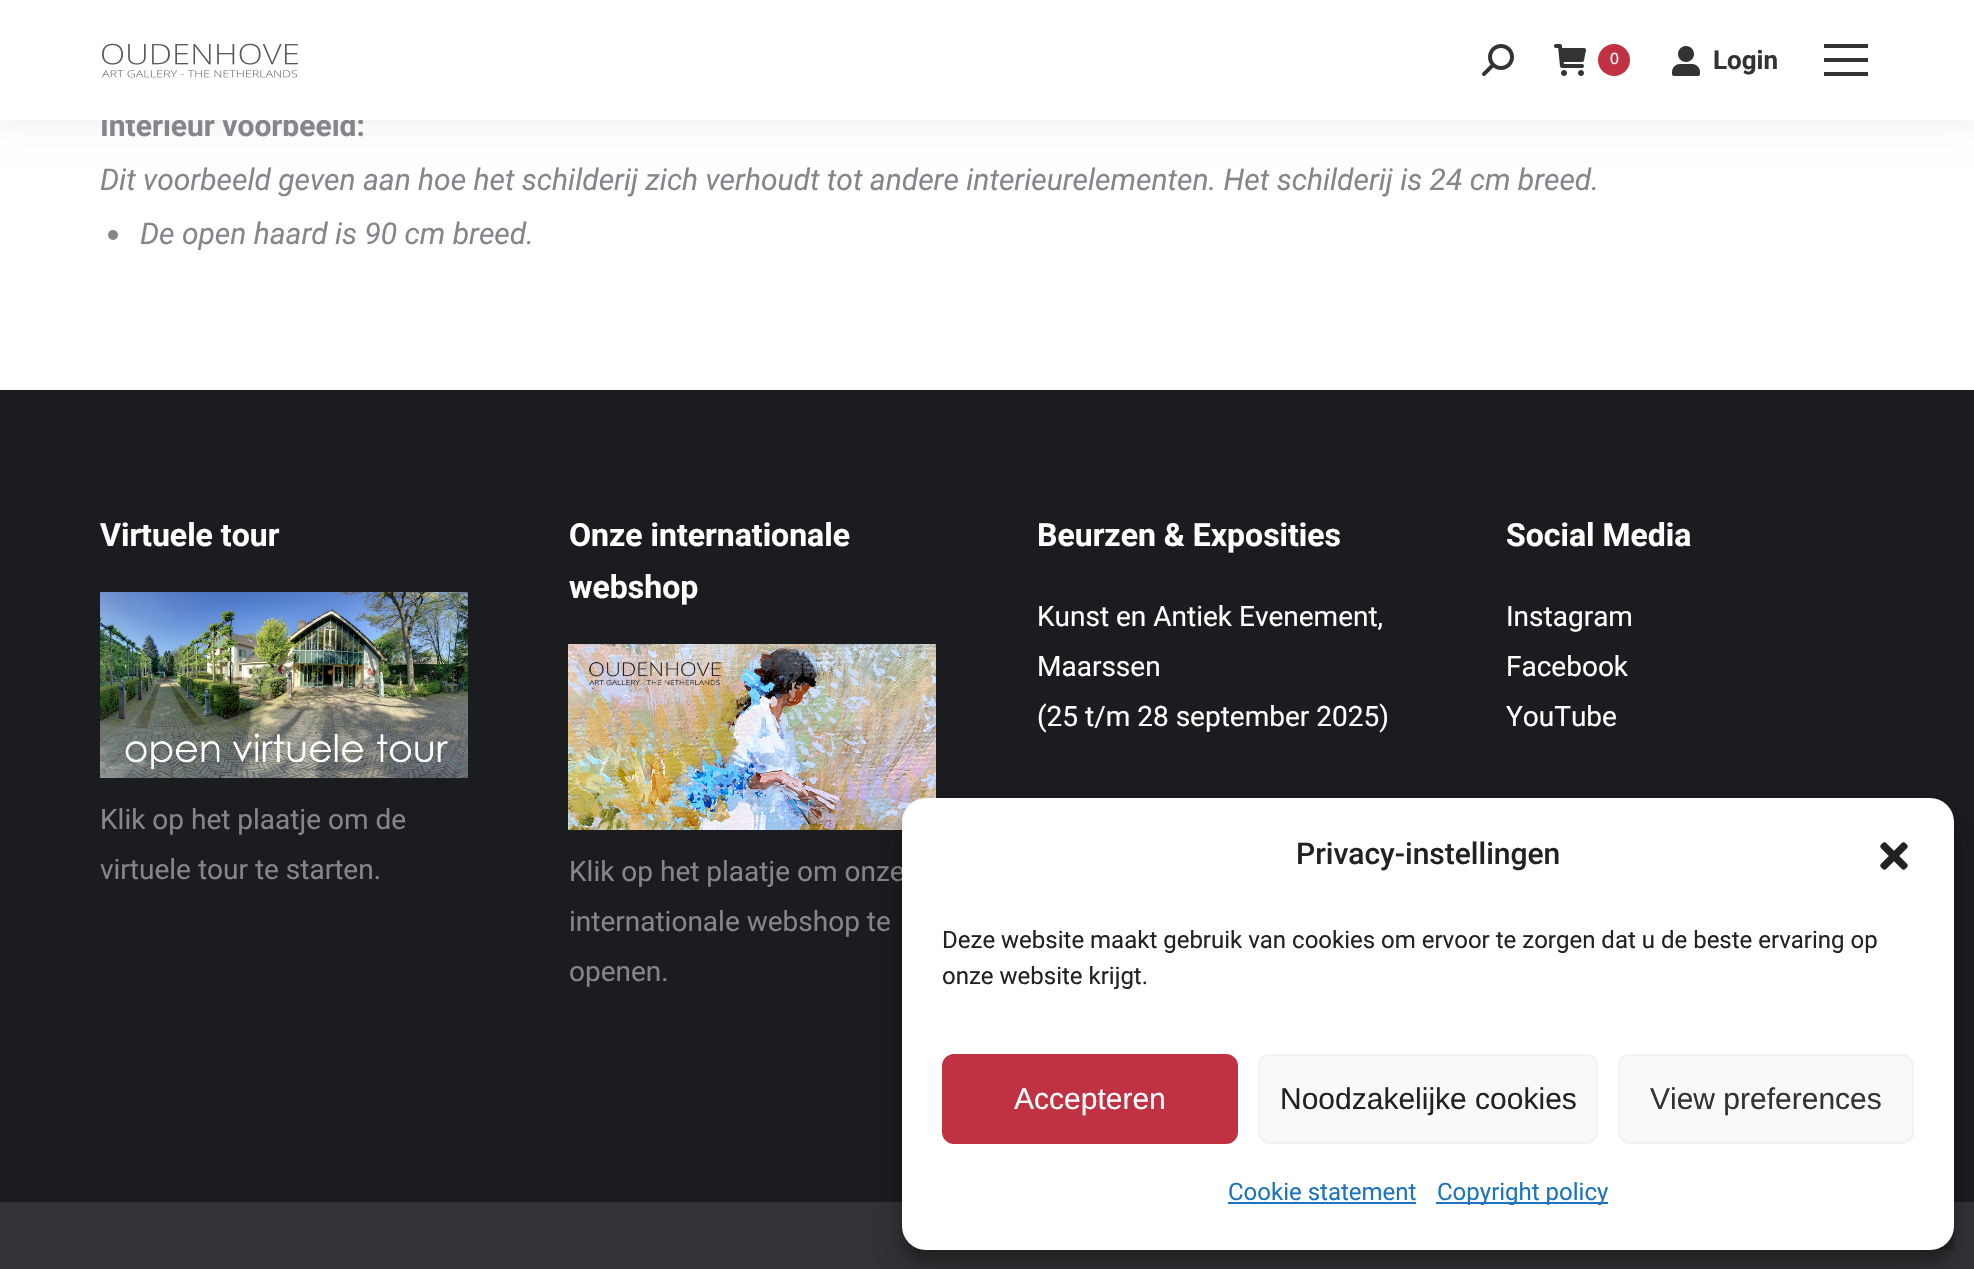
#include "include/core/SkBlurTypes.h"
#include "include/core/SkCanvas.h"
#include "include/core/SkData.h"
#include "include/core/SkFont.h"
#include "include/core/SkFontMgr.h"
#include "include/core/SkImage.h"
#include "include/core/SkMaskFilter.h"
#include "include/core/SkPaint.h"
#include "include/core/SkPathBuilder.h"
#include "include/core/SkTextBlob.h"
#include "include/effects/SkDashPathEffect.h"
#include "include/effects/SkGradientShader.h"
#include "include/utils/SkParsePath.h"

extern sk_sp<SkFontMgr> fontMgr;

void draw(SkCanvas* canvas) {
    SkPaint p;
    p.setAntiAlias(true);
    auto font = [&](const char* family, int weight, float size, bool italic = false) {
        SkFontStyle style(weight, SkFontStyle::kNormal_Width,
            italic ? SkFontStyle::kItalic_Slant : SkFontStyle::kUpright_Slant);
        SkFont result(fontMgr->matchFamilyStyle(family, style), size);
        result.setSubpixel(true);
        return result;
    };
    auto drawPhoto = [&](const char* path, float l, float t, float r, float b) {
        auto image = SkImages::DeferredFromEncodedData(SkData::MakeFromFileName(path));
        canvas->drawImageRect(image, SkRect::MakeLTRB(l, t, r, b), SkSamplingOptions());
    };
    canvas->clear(0xFFFFFFFF);
    p.setColor(0x12000000);
    p.setMaskFilter(SkMaskFilter::MakeBlur(kNormal_SkBlurStyle, 15));
    canvas->drawRect(SkRect::MakeLTRB(-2, -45, 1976, 122), p);
    p.setMaskFilter(nullptr);
    auto font1 = font("Roboto", 700, 30);
    p.setColor(0xFF85868C);
    canvas->drawString("Interieur voorbeeld:", 100, 136, font1, p);
    p.setColor(0xFFFFFFFF);
    canvas->drawRect(SkRect::MakeLTRB(0, 0, 1974, 120), p);
    drawPhoto("media/1.png", 102, 43, 298, 78);
    drawPhoto("media/2.png", 1482, 44, 1514, 76);
    drawPhoto("media/3.png", 1554, 44, 1586, 76);
    p.setColor(0xFFC03142);
    canvas->drawCircle(1614, 60, 16, p);
    auto font2 = font("Liberation Sans", 400, 16);
    p.setColor(0xFFFFFFFF);
    canvas->drawString("0", 1610, 64, font2, p);
    drawPhoto("media/4.png", 1672, 46, 1700, 76);
    auto font3 = font("Roboto", 700, 26);
    p.setColor(0xFF333333);
    canvas->drawString("Login", 1713, 69, font3, p);
    {
        const struct { float l, t, r, b; SkColor color; } items[] = {
            {1824, 44, 1868, 48, 0xFF333333},
            {1824, 58, 1868, 62, 0xFF333333},
            {1824, 72, 1868, 76, 0xFF333333},
        };
        for (auto [l, t, r, b, color] : items) {
            p.setColor(color);
            canvas->drawRect(SkRect::MakeLTRB(l, t, r, b), p);
        }
    }
    auto font4 = font("Roboto", 400, 30, true);
    p.setColor(0xFF85868C);
    canvas->drawString("Dit voorbeeld geven aan hoe het schilderij zich verhoudt tot andere interieurelementen. Het schilderij is 24 cm breed.", 100, 190, font4, p);
    canvas->drawCircle(113, 235, 5, p);
    canvas->drawString("De open haard is 90 cm breed.", 140, 244, font4, p);
    p.setColor(0xFF1A1C20);
    canvas->drawRect(SkRect::MakeLTRB(0, 390, 1974, 1202), p);
    auto font5 = font("Roboto", 700, 32);
    p.setColor(0xFFFFFFFF);
    canvas->drawString("Virtuele tour", 100, 546, font5, p);
    drawPhoto("media/5.png", 100, 592, 468, 778);
    auto font6 = font("Roboto", 400, 28);
    p.setColor(0xFF85868C);
    canvas->drawString("Klik op het plaatje om de", 100, 829, font6, p);
    canvas->drawString("virtuele tour te starten.", 100, 879, font6, p);
    p.setColor(0xFFFFFFFF);
    canvas->drawString("Onze internationale", 569, 546, font5, p);
    canvas->drawString("webshop", 569, 598, font5, p);
    drawPhoto("media/6.png", 568, 644, 936, 830);
    p.setColor(0xFF85868C);
    {
        const struct { const char* s; float x, y; } items[] = {
            {"Klik op het plaatje om onze", 569, 881},
            {"internationale webshop te", 569, 931},
            {"openen.", 569, 981},
        };
        for (auto [s, x, y] : items) {
            canvas->drawString(s, x, y, font6, p);
        }
    }
    p.setColor(0xFFFFFFFF);
    canvas->drawString("Beurzen & Exposities", 1037, 546, font5, p);
    {
        const struct { const char* s; float x, y; } items[] = {
            {"Kunst en Antiek Evenement,", 1037, 626},
            {"Maarssen", 1037, 676},
            {"(25 t/m 28 september 2025)", 1037, 726},
        };
        for (auto [s, x, y] : items) {
            canvas->drawString(s, x, y, font6, p);
        }
    }
    canvas->drawString("Social Media", 1506, 546, font5, p);
    {
        const struct { const char* s; float x, y; } items[] = {
            {"Instagram", 1506, 626},
            {"Facebook", 1506, 676},
            {"YouTube", 1506, 726},
        };
        for (auto [s, x, y] : items) {
            canvas->drawString(s, x, y, font6, p);
        }
    }
    p.setColor(0xFF313336);
    canvas->drawRect(SkRect::MakeLTRB(0, 1202, 1974, 1269), p);
    p.setColor(0x33000000);
    canvas->drawRoundRect(SkRect::MakeLTRB(1874, 1170, 1954, 1250), 2, 2, p);
    p.setColor(0x3B000000);
    p.setMaskFilter(SkMaskFilter::MakeBlur(kNormal_SkBlurStyle, 6));
    canvas->drawRoundRect(SkRect::MakeLTRB(902, 810, 1954, 1262), 24, 24, p);
    p.setMaskFilter(nullptr);
    p.setColor(0x30000000);
    p.setMaskFilter(SkMaskFilter::MakeBlur(kNormal_SkBlurStyle, 20));
    canvas->drawRoundRect(SkRect::MakeLTRB(902, 818, 1954, 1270), 24, 24, p);
    p.setMaskFilter(nullptr);
    p.setColor(0xFFFFFFFF);
    canvas->drawRoundRect(SkRect::MakeLTRB(902, 798, 1954, 1250), 24, 24, p);
    auto font7 = font("Roboto", 500, 30);
    p.setColor(0xFF222222);
    canvas->drawString("Privacy-instellingen", 1296, 864, font7, p);
    drawPhoto("media/7.png", 1880, 842, 1908, 870);
    auto font8 = font("Roboto", 400, 24);
    canvas->drawString("Deze website maakt gebruik van cookies om ervoor te zorgen dat u de beste ervaring op", 942, 948, font8, p);
    canvas->drawString("onze website krijgt.", 942, 984, font8, p);
    p.setColor(0xFFC03142);
    canvas->drawRoundRect(SkRect::MakeLTRB(943, 1055, 1237, 1143), 11, 11, p);
    p.setStyle(SkPaint::kStroke_Style);
    p.setStrokeWidth(2);
    canvas->drawRoundRect(SkRect::MakeLTRB(943, 1055, 1237, 1143), 11, 11, p);
    auto font9 = font("Liberation Sans", 400, 30);
    p.setStyle(SkPaint::kFill_Style);
    p.setColor(0xFFFFFFFF);
    canvas->drawString("Accepteren", 1014, 1109, font9, p);
    p.setColor(0xFFF9F9F9);
    canvas->drawRoundRect(SkRect::MakeLTRB(1259, 1055, 1597, 1143), 11, 11, p);
    p.setStyle(SkPaint::kStroke_Style);
    p.setColor(0xFFF2F2F2);
    canvas->drawRoundRect(SkRect::MakeLTRB(1259, 1055, 1597, 1143), 11, 11, p);
    p.setStyle(SkPaint::kFill_Style);
    p.setColor(0xFF222222);
    canvas->drawString("Noodzakelijke cookies", 1280, 1109, font9, p);
    p.setColor(0xFFF9F9F9);
    canvas->drawRoundRect(SkRect::MakeLTRB(1619, 1055, 1913, 1143), 11, 11, p);
    p.setStyle(SkPaint::kStroke_Style);
    p.setColor(0xFFF2F2F2);
    canvas->drawRoundRect(SkRect::MakeLTRB(1619, 1055, 1913, 1143), 11, 11, p);
    p.setStyle(SkPaint::kFill_Style);
    p.setColor(0xFF333333);
    canvas->drawString("View preferences", 1650, 1109, font9, p);
    p.setColor(0xFF1E73BE);
    canvas->drawString("Cookie statement", 1228, 1200, font8, p);
    canvas->drawRect(SkRect::MakeLTRB(1228, 1202, 1416, 1204), p);
    canvas->drawRect(SkRect::MakeLTRB(1436, 1202, 1608, 1204), p);
    canvas->drawString("Copyright policy", 1437, 1200, font8, p);
}
